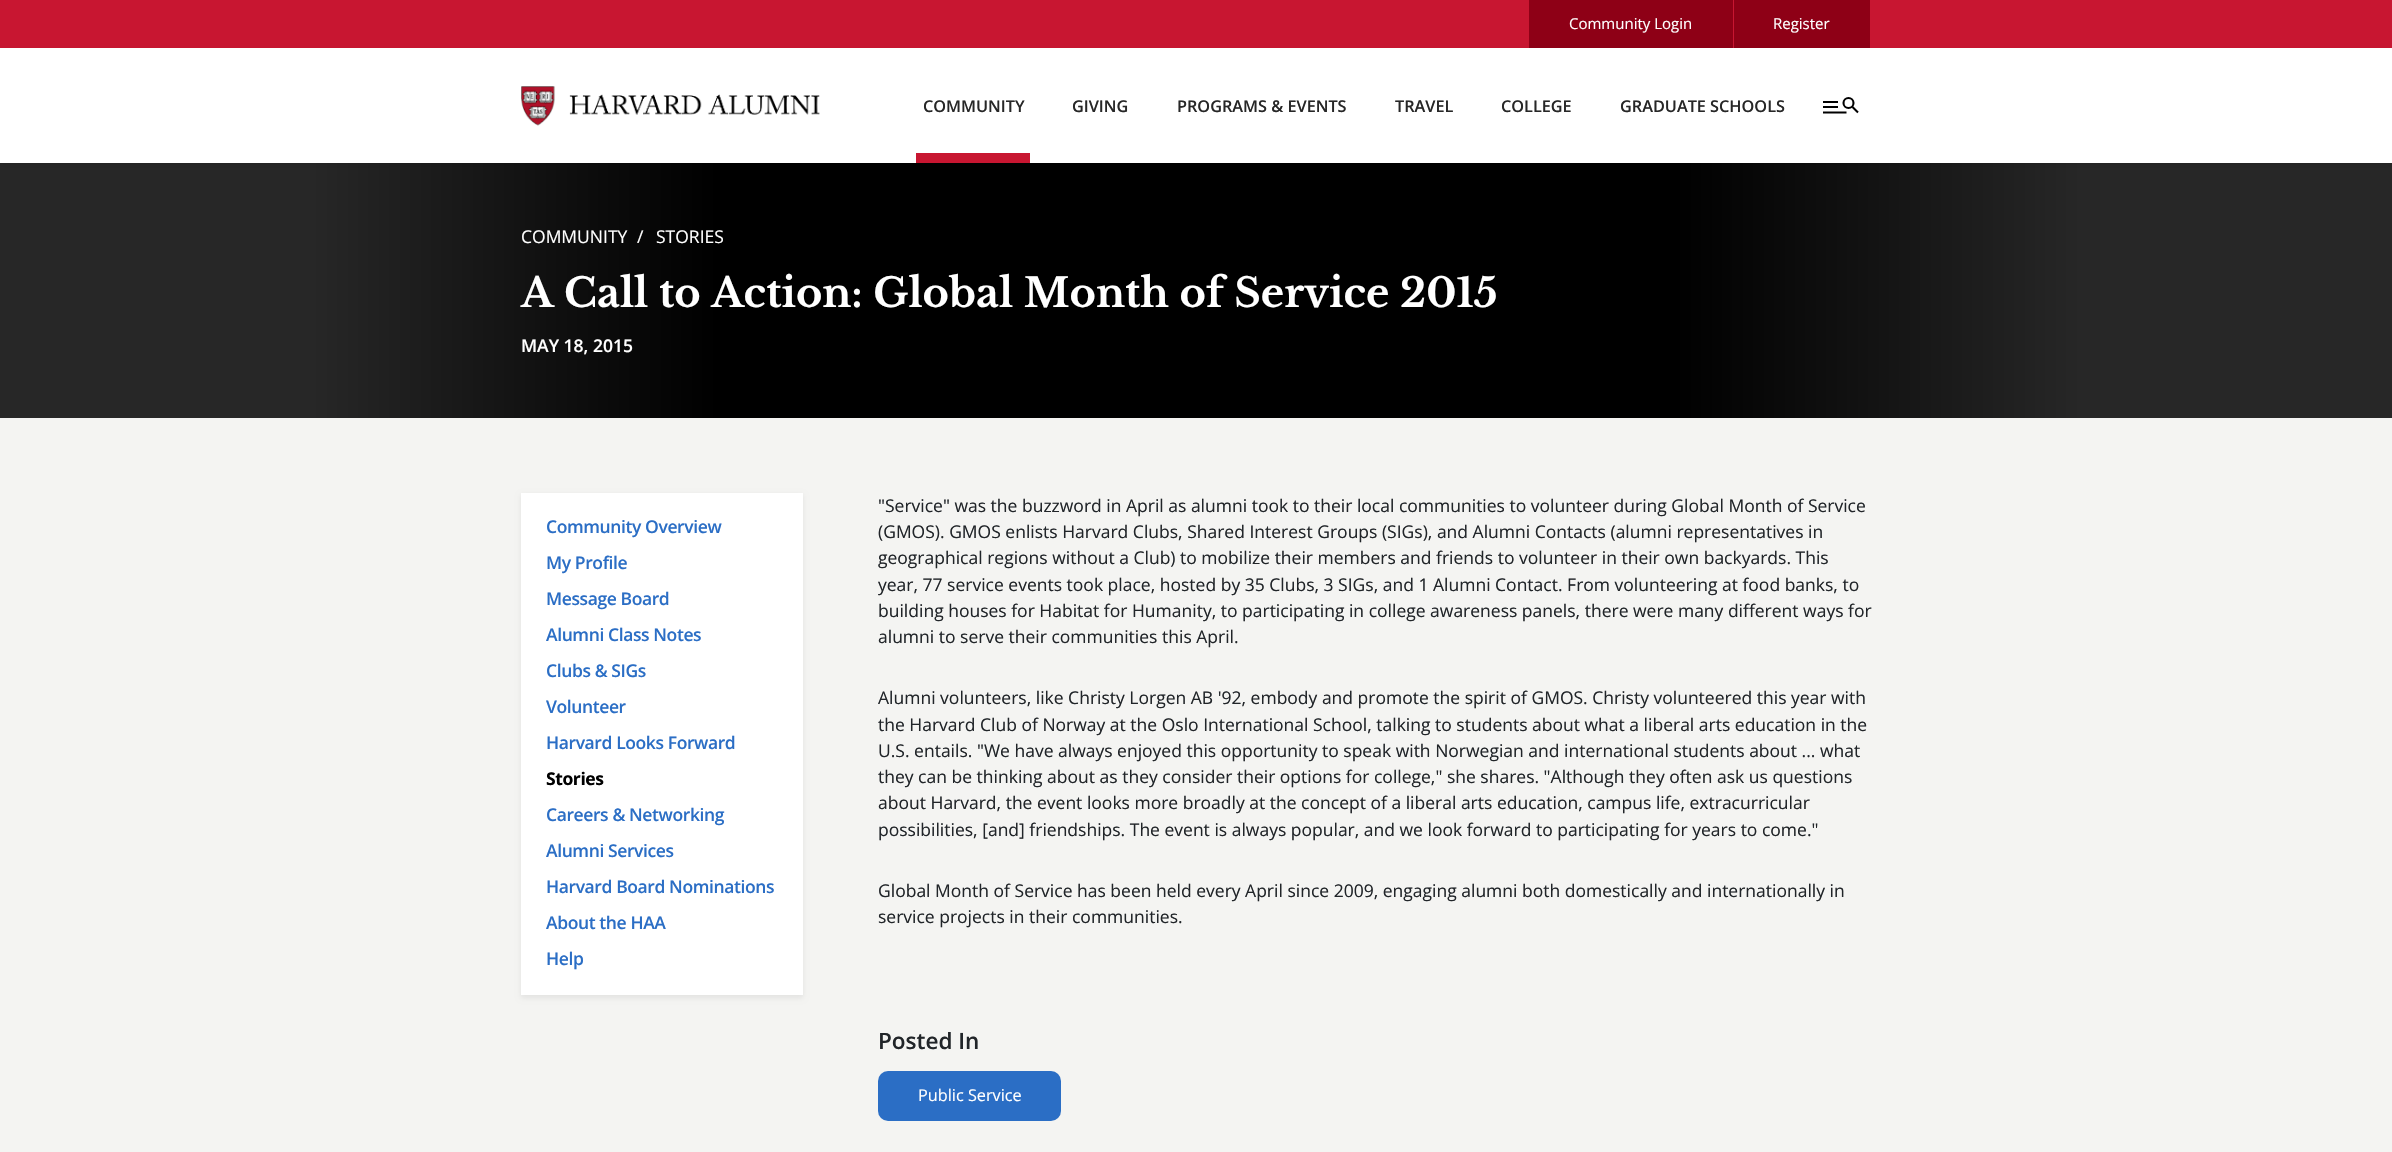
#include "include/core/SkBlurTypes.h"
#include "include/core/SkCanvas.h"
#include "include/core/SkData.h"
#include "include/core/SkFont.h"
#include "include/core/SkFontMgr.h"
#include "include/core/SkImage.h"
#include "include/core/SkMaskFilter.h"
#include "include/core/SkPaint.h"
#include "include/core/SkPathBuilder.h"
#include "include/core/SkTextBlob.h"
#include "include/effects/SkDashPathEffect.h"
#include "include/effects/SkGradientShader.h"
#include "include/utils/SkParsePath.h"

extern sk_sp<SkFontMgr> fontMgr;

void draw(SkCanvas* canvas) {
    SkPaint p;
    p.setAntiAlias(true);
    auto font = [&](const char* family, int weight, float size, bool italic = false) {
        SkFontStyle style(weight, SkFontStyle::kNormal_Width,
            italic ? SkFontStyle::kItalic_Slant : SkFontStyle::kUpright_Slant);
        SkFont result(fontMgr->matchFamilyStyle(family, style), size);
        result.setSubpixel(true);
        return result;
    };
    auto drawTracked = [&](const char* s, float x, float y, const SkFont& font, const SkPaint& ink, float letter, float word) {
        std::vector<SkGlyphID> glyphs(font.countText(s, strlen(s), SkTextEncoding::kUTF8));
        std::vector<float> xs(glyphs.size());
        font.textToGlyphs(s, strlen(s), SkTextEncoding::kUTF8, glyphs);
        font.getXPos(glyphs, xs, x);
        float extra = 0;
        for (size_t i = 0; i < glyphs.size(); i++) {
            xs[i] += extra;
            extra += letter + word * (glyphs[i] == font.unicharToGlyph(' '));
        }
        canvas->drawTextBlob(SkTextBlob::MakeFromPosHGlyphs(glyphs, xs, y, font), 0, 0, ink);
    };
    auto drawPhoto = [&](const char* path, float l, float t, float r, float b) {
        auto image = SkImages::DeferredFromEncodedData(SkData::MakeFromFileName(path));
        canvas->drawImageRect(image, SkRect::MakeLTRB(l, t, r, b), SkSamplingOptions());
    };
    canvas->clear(0xFFF4F4F2);
    p.setColor(0xFFC81631);
    canvas->drawRect(SkRect::MakeLTRB(0, 0, 2392, 48), p);
    p.setColor(0xFF8E0016);
    canvas->drawRect(SkRect::MakeLTRB(1529, 0, 1733, 48), p);
    auto font1 = font("Open Sans", 400, 15);
    p.setColor(0xFFFFFFFF);
    canvas->drawString("Community Login", 1569, 29, font1, p);
    p.setColor(0xFF8E0016);
    canvas->drawRect(SkRect::MakeLTRB(1734, 0, 1870, 48), p);
    p.setColor(0xFFFFFFFF);
    canvas->drawString("Register", 1773, 29, font1, p);
    {
        const SkColor colors[] = {0xFF272727, 0xFF272727, 0xFF000000, 0xFF000000, 0xFF272727, 0xFF272727};
        const float stops[] = {0, 0.13f, 0.3f, 0.7f, 0.87f, 1};
        const SkPoint ends[] = {{0, 290}, {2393, 290}};
        p.setShader(SkGradientShader::MakeLinear(ends, colors, stops, 6, SkTileMode::kClamp));
        p.setAlpha(255);
    }
    canvas->drawRect(SkRect::MakeLTRB(0, 163, 2392, 418), p);
    p.setShader(nullptr);
    p.setColor(0x12000000);
    p.setMaskFilter(SkMaskFilter::MakeBlur(kNormal_SkBlurStyle, 2.5f));
    canvas->drawRect(SkRect::MakeLTRB(0, 50, 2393, 165), p);
    p.setMaskFilter(nullptr);
    p.setColor(0xFFFFFFFF);
    canvas->drawRect(SkRect::MakeLTRB(0, 48, 2392, 163), p);
    drawPhoto("media/1.png", 521, 86, 820, 126);
    auto font2 = font("Open Sans", 600, 16.25f);
    p.setColor(0xFF272727);
    canvas->drawString("COMMUNITY", 923, 112, font2, p);
    p.setColor(0xFFC81631);
    canvas->drawRect(SkRect::MakeLTRB(916, 153, 1030, 163), p);
    p.setColor(0xFF272727);
    {
        const struct { const char* s; float x, y; } items[] = {
            {"GIVING", 1072, 112},
            {"PROGRAMS & EVENTS", 1177, 112},
            {"TRAVEL", 1395, 112},
            {"COLLEGE", 1501, 112},
            {"GRADUATE SCHOOLS", 1620, 112},
        };
        for (auto [s, x, y] : items) {
            canvas->drawString(s, x, y, font2, p);
        }
    }
    p.setStyle(SkPaint::kStroke_Style);
    p.setStrokeWidth(2.1f);
    p.setColor(0xFF000000);
    canvas->drawCircle(1848.5f, 103, 5, p);
    canvas->drawPath(SkPathBuilder().moveTo(1852.5f, 107).lineTo(1858, 112.5f).moveTo(1823, 112.5f).lineTo(1846.5f, 112.5f).moveTo(1823, 107).lineTo(1838, 107).moveTo(1823, 102).lineTo(1838, 102).detach(), p);
    auto font3 = font("Open Sans", 400, 17.5f);
    p.setStyle(SkPaint::kFill_Style);
    p.setColor(0xFFFFFFFF);
    {
        const struct { const char* s; float x, y; } items[] = {
            {"COMMUNITY", 521, 243},
            {"/", 637, 243},
            {"STORIES", 656, 243},
        };
        for (auto [s, x, y] : items) {
            canvas->drawString(s, x, y, font3, p);
        }
    }
    auto font4 = font("Libre Baskerville", 700, 40);
    canvas->drawString("A Call to Action: Global Month of Service 2015", 521, 307, font4, p);
    auto font5 = font("Open Sans", 600, 17.5f);
    canvas->drawString("MAY 18, 2015", 521, 352, font5, p);
    p.setColor(0x12000000);
    p.setMaskFilter(SkMaskFilter::MakeBlur(kNormal_SkBlurStyle, 2.5f));
    canvas->drawRect(SkRect::MakeLTRB(521, 495, 803, 998), p);
    p.setMaskFilter(nullptr);
    p.setColor(0xFFFFFFFF);
    canvas->drawRect(SkRect::MakeLTRB(521, 493, 803, 995), p);
    p.setColor(0xFF2B6EC5);
    {
        const struct { const char* s; float x, y; } items[] = {
            {"Community Overview", 546, 533},
            {"My Profile", 546, 569},
            {"Message Board", 546, 605},
            {"Alumni Class Notes", 546, 641},
            {"Clubs & SIGs", 546, 677},
            {"Volunteer", 546, 713},
            {"Harvard Looks Forward", 546, 749},
        };
        for (auto [s, x, y] : items) {
            drawTracked(s, x, y, font5, p, -0.4f, 0);
        }
    }
    auto font6 = font("Open Sans", 700, 17.5f);
    p.setColor(0xFF000000);
    drawTracked("Stories", 546, 785, font6, p, -0.4f, 0);
    p.setColor(0xFF2B6EC5);
    {
        const struct { const char* s; float x, y; } items[] = {
            {"Careers & Networking", 546, 821},
            {"Alumni Services", 546, 857},
            {"Harvard Board Nominations", 546, 893},
            {"About the HAA", 546, 929},
            {"Help", 546, 965},
        };
        for (auto [s, x, y] : items) {
            drawTracked(s, x, y, font5, p, -0.4f, 0);
        }
    }
    p.setColor(0xFF212529);
    {
        const struct { const char* s; float x, y; } items[] = {
            {"\"Service\" was the buzzword in April as alumni took to their local communities to volunteer during Global Month of Service", 878, 512},
            {"(GMOS). GMOS enlists Harvard Clubs, Shared Interest Groups (SIGs), and Alumni Contacts (alumni representatives in", 878, 538},
            {"geographical regions without a Club) to mobilize their members and friends to volunteer in their own backyards. This", 878, 564},
            {"year, 77 service events took place, hosted by 35 Clubs, 3 SIGs, and 1 Alumni Contact. From volunteering at food banks, to", 878, 591},
            {"building houses for Habitat for Humanity, to participating in college awareness panels, there were many different ways for", 878, 617},
            {"alumni to serve their communities this April.", 878, 643},
            {"Alumni volunteers, like Christy Lorgen AB '92, embody and promote the spirit of GMOS. Christy volunteered this year with", 878, 704},
            {"the Harvard Club of Norway at the Oslo International School, talking to students about what a liberal arts education in the", 878, 731},
            {"U.S. entails. \"We have always enjoyed this opportunity to speak with Norwegian and international students about ... what", 878, 757},
            {"they can be thinking about as they consider their options for college,\" she shares. \"Although they often ask us questions", 878, 783},
            {"about Harvard, the event looks more broadly at the concept of a liberal arts education, campus life, extracurricular", 878, 809},
            {"possibilities, [and] friendships. The event is always popular, and we look forward to participating for years to come.\"", 878, 836},
            {"Global Month of Service has been held every April since 2009, engaging alumni both domestically and internationally in", 878, 897},
            {"service projects in their communities.", 878, 923},
        };
        for (auto [s, x, y] : items) {
            canvas->drawString(s, x, y, font3, p);
        }
    }
    auto font7 = font("Open Sans", 600, 22.5f);
    canvas->drawString("Posted In", 878, 1049, font7, p);
    p.setColor(0xFF2B6EC5);
    canvas->drawRoundRect(SkRect::MakeLTRB(878, 1071, 1061, 1121), 10, 10, p);
    auto font8 = font("Open Sans", 400, 16.25f);
    p.setColor(0xFFFFFFFF);
    canvas->drawString("Public Service", 918, 1101, font8, p);
}
